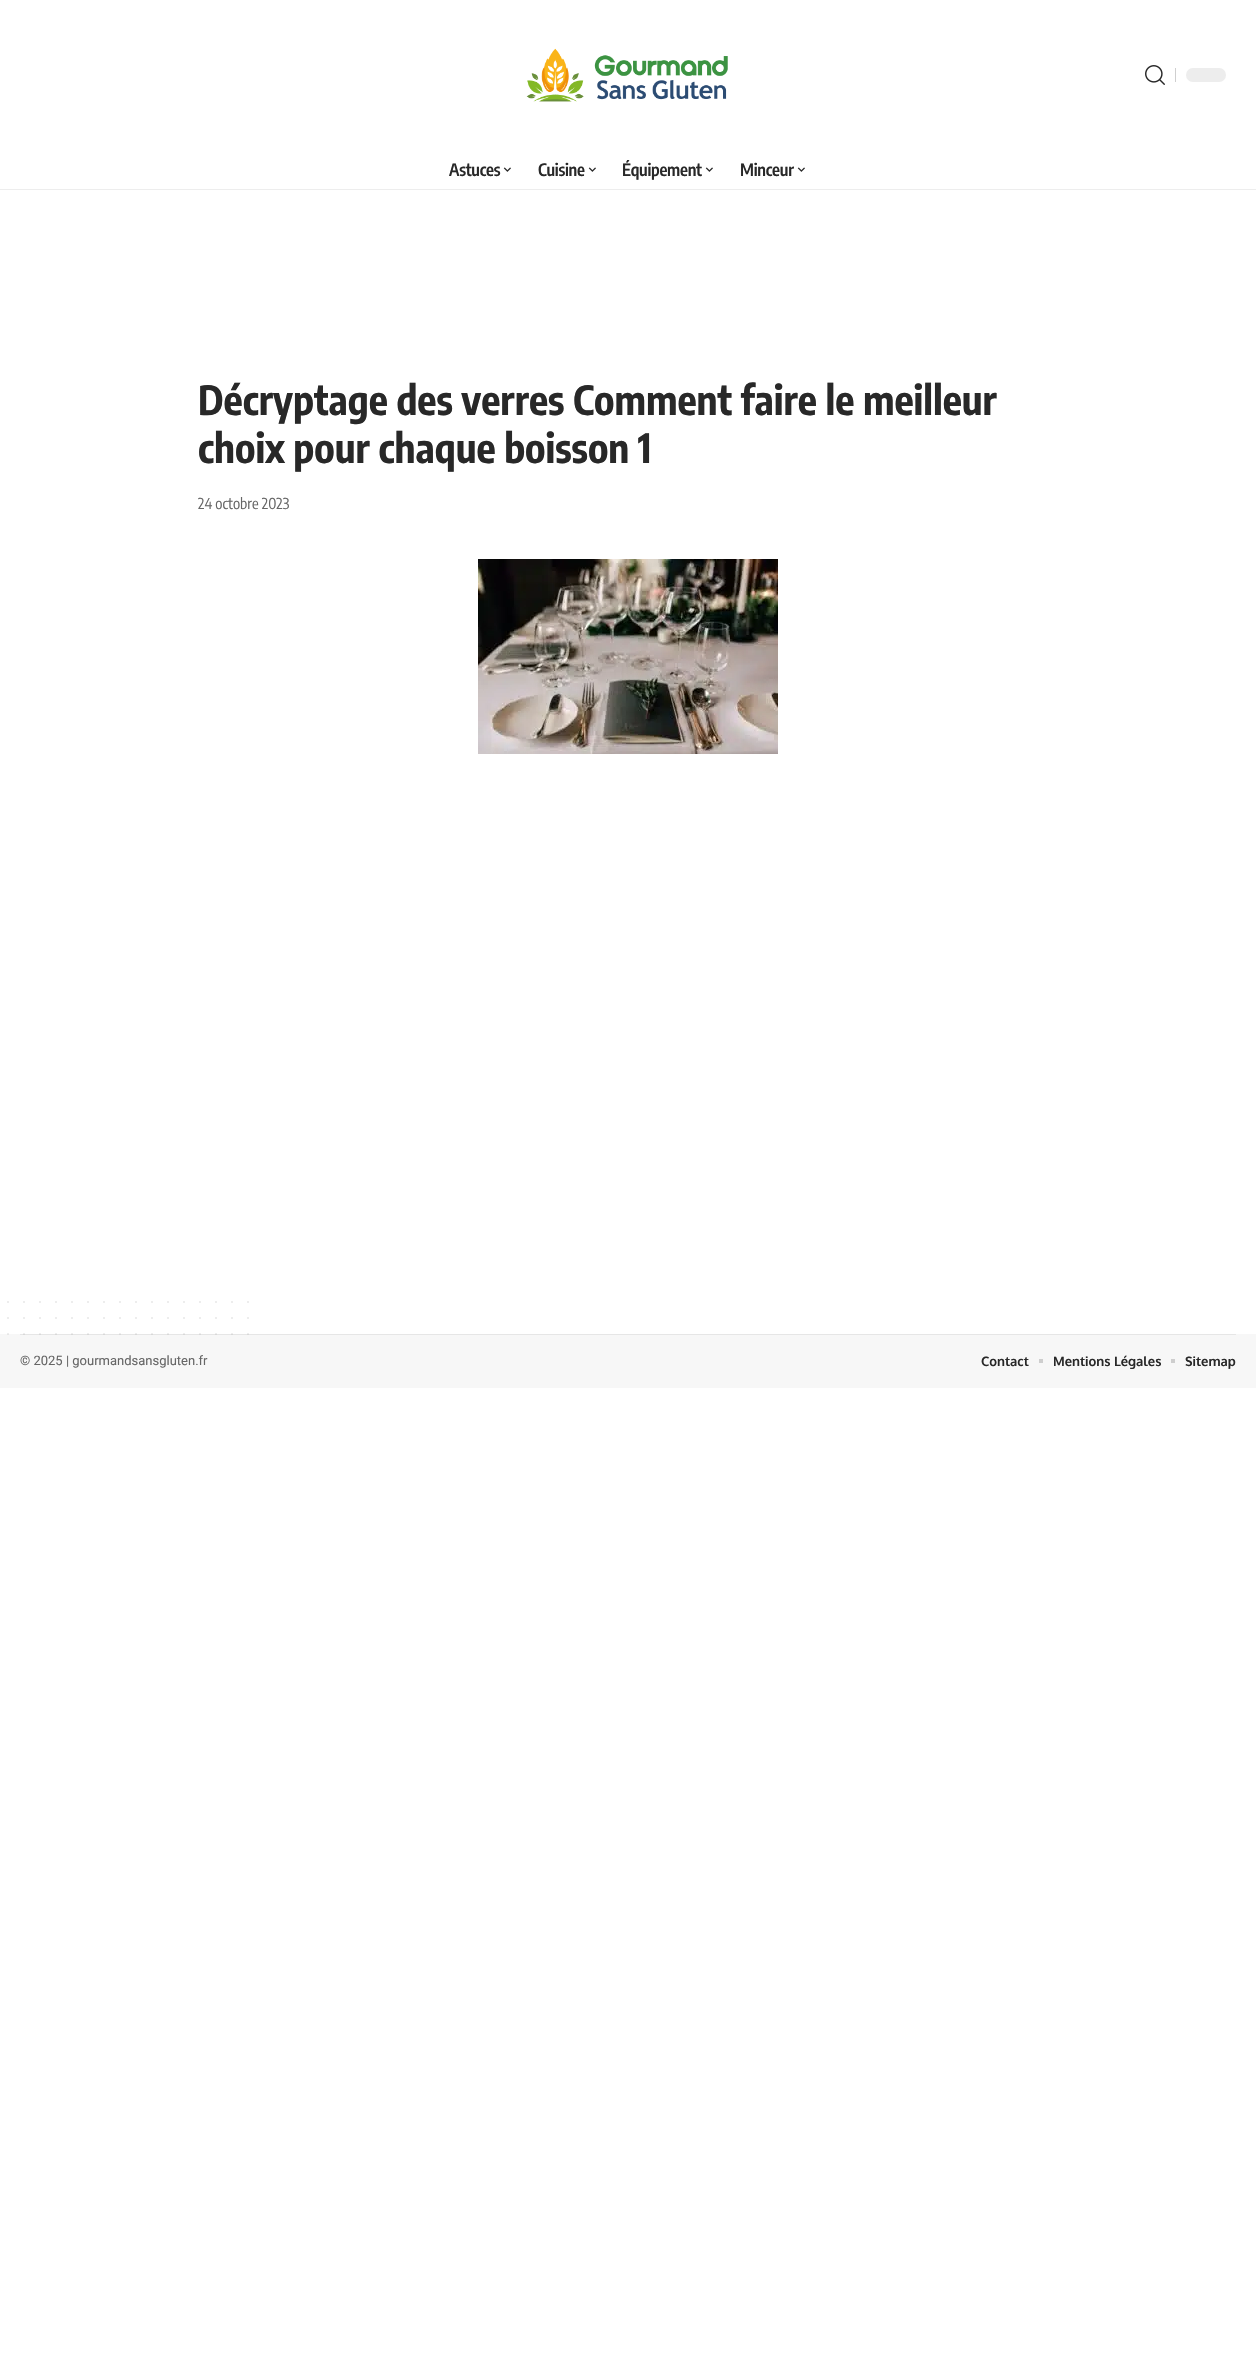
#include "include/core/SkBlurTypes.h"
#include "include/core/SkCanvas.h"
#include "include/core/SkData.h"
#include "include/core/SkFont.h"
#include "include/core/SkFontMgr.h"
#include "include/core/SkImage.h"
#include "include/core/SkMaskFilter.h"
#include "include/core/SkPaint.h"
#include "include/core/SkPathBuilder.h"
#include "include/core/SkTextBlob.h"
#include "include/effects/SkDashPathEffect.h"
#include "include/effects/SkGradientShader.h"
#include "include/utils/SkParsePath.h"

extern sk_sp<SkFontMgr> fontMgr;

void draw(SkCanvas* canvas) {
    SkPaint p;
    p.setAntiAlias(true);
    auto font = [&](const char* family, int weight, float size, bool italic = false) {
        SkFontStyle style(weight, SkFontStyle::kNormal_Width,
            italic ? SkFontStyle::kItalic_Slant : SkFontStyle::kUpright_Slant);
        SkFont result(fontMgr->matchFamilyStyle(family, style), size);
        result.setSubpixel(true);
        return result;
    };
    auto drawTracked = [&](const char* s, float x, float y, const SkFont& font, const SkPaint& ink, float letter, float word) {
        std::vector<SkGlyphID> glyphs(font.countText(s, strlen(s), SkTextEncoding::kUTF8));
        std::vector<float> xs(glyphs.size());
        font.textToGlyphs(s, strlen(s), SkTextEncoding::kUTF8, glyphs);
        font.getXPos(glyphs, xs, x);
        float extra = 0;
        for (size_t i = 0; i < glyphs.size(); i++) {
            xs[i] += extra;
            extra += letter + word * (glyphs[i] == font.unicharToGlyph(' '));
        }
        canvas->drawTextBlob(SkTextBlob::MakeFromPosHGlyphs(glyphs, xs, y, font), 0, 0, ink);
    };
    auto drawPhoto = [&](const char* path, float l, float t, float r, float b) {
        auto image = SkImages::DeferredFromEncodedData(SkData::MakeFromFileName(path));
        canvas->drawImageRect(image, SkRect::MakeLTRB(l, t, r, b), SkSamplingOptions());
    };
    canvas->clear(0xFFFFFFFF);
    drawPhoto("media/1.png", 526, 48, 728, 102);
    drawPhoto("media/2.png", 1145, 65, 1165, 85);
    p.setColor(0xFFCFCFCF);
    canvas->drawRect(SkRect::MakeLTRB(1175, 68, 1176, 82), p);
    p.setColor(0xFFEDEDED);
    canvas->drawRoundRect(SkRect::MakeLTRB(1186, 68, 1226, 82), 7, 7, p);
    auto font1 = font("Encode Sans Condensed", 600, 17);
    p.setColor(0xFF282828);
    drawTracked("Astuces", 449, 176, font1, p, -0.25f, 0);
    drawPhoto("media/3.png", 503, 167, 511, 172);
    drawTracked("Cuisine", 538, 176, font1, p, -0.25f, 0);
    drawPhoto("media/3.png", 588, 167, 596, 172);
    drawTracked("Équipement", 622, 176, font1, p, -0.25f, 0);
    drawPhoto("media/3.png", 705, 167, 713, 172);
    drawTracked("Minceur", 740, 176, font1, p, -0.25f, 0);
    drawPhoto("media/3.png", 797, 167, 805, 172);
    p.setColor(0xFFEDEDED);
    canvas->drawRect(SkRect::MakeLTRB(0, 189, 1256, 190), p);
    auto font2 = font("Encode Sans Condensed", 700, 40);
    p.setColor(0xFF282828);
    canvas->drawString("Décryptage des verres Comment faire le meilleur", 198, 415, font2, p);
    canvas->drawString("choix pour chaque boisson 1", 198, 463, font2, p);
    auto font3 = font("Encode Sans Condensed", 400, 15);
    p.setColor(0xFF666666);
    canvas->drawString("24 octobre 2023", 198, 509, font3, p);
    drawPhoto("media/4.png", 478, 559, 778, 754);
    p.setStyle(SkPaint::kStroke_Style);
    p.setStrokeWidth(1.5f);
    p.setStrokeCap(SkPaint::kRound_Cap);
    p.setColor(0xFFD4D4D4);
    p.setPathEffect(SkDashPathEffect::Make({{0, 16}}, 0));
    canvas->drawPath(SkPathBuilder().moveTo(8, 1302).lineTo(248.2f, 1302).detach(), p);
    p.setPathEffect(nullptr);
    p.setPathEffect(SkDashPathEffect::Make({{0, 16}}, 0));
    canvas->drawPath(SkPathBuilder().moveTo(8, 1318).lineTo(248.2f, 1318).detach(), p);
    p.setPathEffect(nullptr);
    p.setStyle(SkPaint::kFill_Style);
    p.setColor(0xFFF7F7F7);
    canvas->drawRect(SkRect::MakeLTRB(0, 1334, 1256, 1388), p);
    p.setStyle(SkPaint::kStroke_Style);
    p.setColor(0x33282828);
    p.setPathEffect(SkDashPathEffect::Make({{0, 16}}, 0));
    canvas->drawPath(SkPathBuilder().moveTo(8, 1334).lineTo(248.2f, 1334).detach(), p);
    p.setPathEffect(nullptr);
    p.setStyle(SkPaint::kFill_Style);
    p.setColor(0x26888888);
    canvas->drawRect(SkRect::MakeLTRB(20, 1334, 1236, 1335), p);
    auto font4 = font("Roboto", 400, 13);
    p.setColor(0xFF666666);
    canvas->drawString("© 2025 | gourmandsansgluten.fr", 20, 1365, font4, p);
    auto font5 = font("Oxygen", 700, 13);
    p.setColor(0xFF282828);
    canvas->drawString("Contact", 981, 1366, font5, p);
    p.setColor(0xFFCECECE);
    canvas->drawRect(SkRect::MakeLTRB(1039, 1359, 1043, 1363), p);
    p.setColor(0xFF282828);
    canvas->drawString("Mentions Légales", 1053, 1366, font5, p);
    p.setColor(0xFFCECECE);
    canvas->drawRect(SkRect::MakeLTRB(1171, 1359, 1175, 1363), p);
    p.setColor(0xFF282828);
    canvas->drawString("Sitemap", 1185, 1366, font5, p);
}
